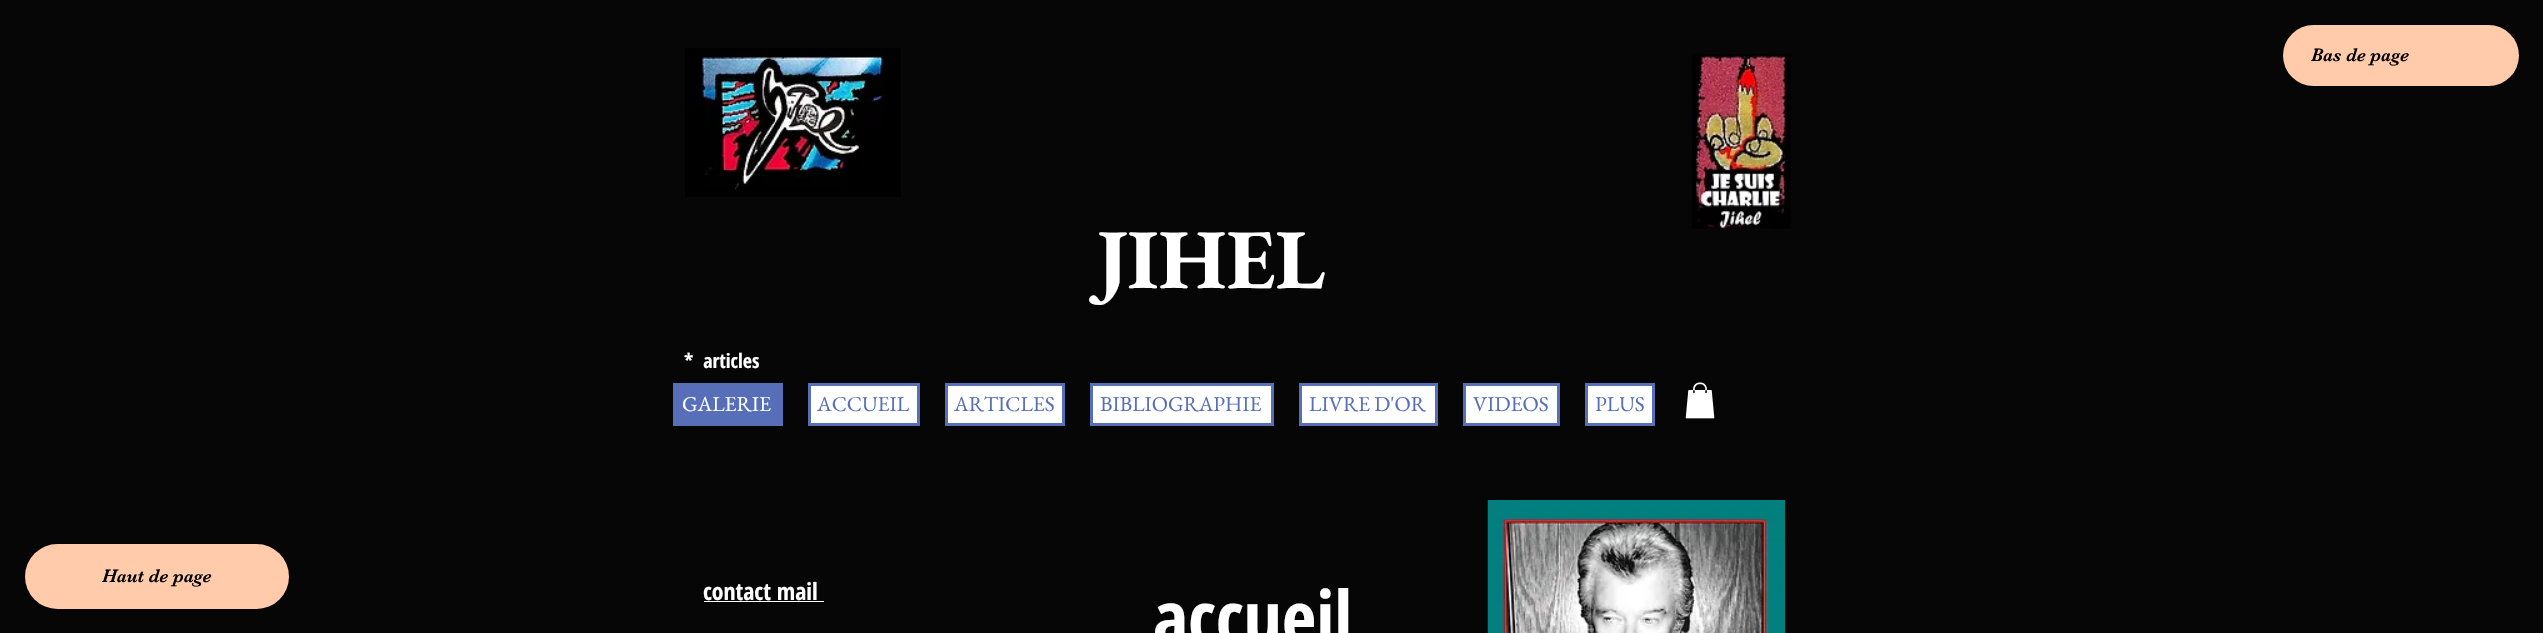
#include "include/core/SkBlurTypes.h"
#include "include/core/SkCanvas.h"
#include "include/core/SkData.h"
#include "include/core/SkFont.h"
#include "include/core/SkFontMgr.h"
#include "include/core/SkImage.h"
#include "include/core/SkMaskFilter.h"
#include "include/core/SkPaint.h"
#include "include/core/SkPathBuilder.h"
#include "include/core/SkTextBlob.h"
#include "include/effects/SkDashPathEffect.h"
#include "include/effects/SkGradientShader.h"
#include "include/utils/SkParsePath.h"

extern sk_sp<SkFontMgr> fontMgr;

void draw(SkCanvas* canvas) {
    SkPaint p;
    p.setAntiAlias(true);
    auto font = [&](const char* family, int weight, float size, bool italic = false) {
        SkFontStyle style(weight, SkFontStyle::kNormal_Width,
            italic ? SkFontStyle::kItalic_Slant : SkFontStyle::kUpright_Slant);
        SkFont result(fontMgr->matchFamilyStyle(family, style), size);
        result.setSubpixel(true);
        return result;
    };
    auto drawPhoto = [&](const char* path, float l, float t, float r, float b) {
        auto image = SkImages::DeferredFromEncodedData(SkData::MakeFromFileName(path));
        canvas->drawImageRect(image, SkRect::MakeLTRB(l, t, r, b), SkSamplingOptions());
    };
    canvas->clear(0xFF060606);
    p.setColor(0xFFFFCBAA);
    canvas->drawRoundRect(SkRect::MakeLTRB(2283, 25, 2519, 86), 30.5f, 30.5f, p);
    auto font1 = font("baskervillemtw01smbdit", 400, 18.75f);
    p.setColor(0xFF000000);
    canvas->drawString("Bas de page", 2311, 61, font1, p);
    p.setColor(0xFFFFCBAA);
    canvas->drawRoundRect(SkRect::MakeLTRB(25, 544, 289, 609), 32.5f, 32.5f, p);
    p.setColor(0xFF000000);
    canvas->drawString("Haut de page", 102, 582, font1, p);
    drawPhoto("media/1.png", 685, 48, 901, 197);
    drawPhoto("media/2.png", 1692, 54, 1791, 229);
    auto font2 = font("EB Garamond", 700, 85);
    p.setColor(0xFFFFFFFF);
    canvas->drawString("JIHEL", 1096, 288, font2, p);
    auto font3 = font("Open Sans Condensed", 700, 20);
    canvas->drawString("*  articles", 684, 368, font3, p);
    p.setColor(0xFF566FB8);
    canvas->drawRect(SkRect::MakeLTRB(673, 383, 783, 426), p);
    auto font4 = font("EB Garamond", 400, 21.25f);
    p.setColor(0xFFFFFFFF);
    canvas->drawString("GALERIE", 682, 411, font4, p);
    canvas->drawRect(SkRect::MakeLTRB(809.5f, 384.5f, 918.5f, 424.5f), p);
    p.setStyle(SkPaint::kStroke_Style);
    p.setStrokeWidth(3);
    p.setColor(0xFF566FB8);
    canvas->drawRect(SkRect::MakeLTRB(809.5f, 384.5f, 918.5f, 424.5f), p);
    p.setStyle(SkPaint::kFill_Style);
    canvas->drawString("ACCUEIL", 817, 411, font4, p);
    p.setColor(0xFFFFFFFF);
    canvas->drawRect(SkRect::MakeLTRB(946.5f, 384.5f, 1063.5f, 424.5f), p);
    p.setStyle(SkPaint::kStroke_Style);
    p.setColor(0xFF566FB8);
    canvas->drawRect(SkRect::MakeLTRB(946.5f, 384.5f, 1063.5f, 424.5f), p);
    p.setStyle(SkPaint::kFill_Style);
    canvas->drawString("ARTICLES", 954, 411, font4, p);
    p.setColor(0xFFFFFFFF);
    canvas->drawRect(SkRect::MakeLTRB(1091.5f, 384.5f, 1272.5f, 424.5f), p);
    p.setStyle(SkPaint::kStroke_Style);
    p.setColor(0xFF566FB8);
    canvas->drawRect(SkRect::MakeLTRB(1091.5f, 384.5f, 1272.5f, 424.5f), p);
    p.setStyle(SkPaint::kFill_Style);
    canvas->drawString("BIBLIOGRAPHIE", 1100, 411, font4, p);
    p.setColor(0xFFFFFFFF);
    canvas->drawRect(SkRect::MakeLTRB(1300.5f, 384.5f, 1436.5f, 424.5f), p);
    p.setStyle(SkPaint::kStroke_Style);
    p.setColor(0xFF566FB8);
    canvas->drawRect(SkRect::MakeLTRB(1300.5f, 384.5f, 1436.5f, 424.5f), p);
    p.setStyle(SkPaint::kFill_Style);
    canvas->drawString("LIVRE D'OR", 1309, 411, font4, p);
    p.setColor(0xFFFFFFFF);
    canvas->drawRect(SkRect::MakeLTRB(1464.5f, 384.5f, 1558.5f, 424.5f), p);
    p.setStyle(SkPaint::kStroke_Style);
    p.setColor(0xFF566FB8);
    canvas->drawRect(SkRect::MakeLTRB(1464.5f, 384.5f, 1558.5f, 424.5f), p);
    p.setStyle(SkPaint::kFill_Style);
    canvas->drawString("VIDEOS", 1473, 411, font4, p);
    p.setColor(0xFFFFFFFF);
    canvas->drawRect(SkRect::MakeLTRB(1586.5f, 384.5f, 1653.5f, 424.5f), p);
    p.setStyle(SkPaint::kStroke_Style);
    p.setColor(0xFF566FB8);
    canvas->drawRect(SkRect::MakeLTRB(1586.5f, 384.5f, 1653.5f, 424.5f), p);
    p.setStyle(SkPaint::kFill_Style);
    canvas->drawString("PLUS", 1595, 411, font4, p);
    drawPhoto("media/3.png", 1685, 382, 1715, 419);
    auto font5 = font("Open Sans Condensed", 700, 23.75f);
    p.setColor(0xFFFFFFFF);
    canvas->drawString("contact mail", 703, 600, font5, p);
    canvas->drawRect(SkRect::MakeLTRB(704, 601, 824, 602), p);
    auto font6 = font("Open Sans Condensed", 700, 75);
    canvas->drawString("accueil", 1153, 645, font6, p);
    drawPhoto("media/4.png", 1487, 500, 1785, 633);
}
